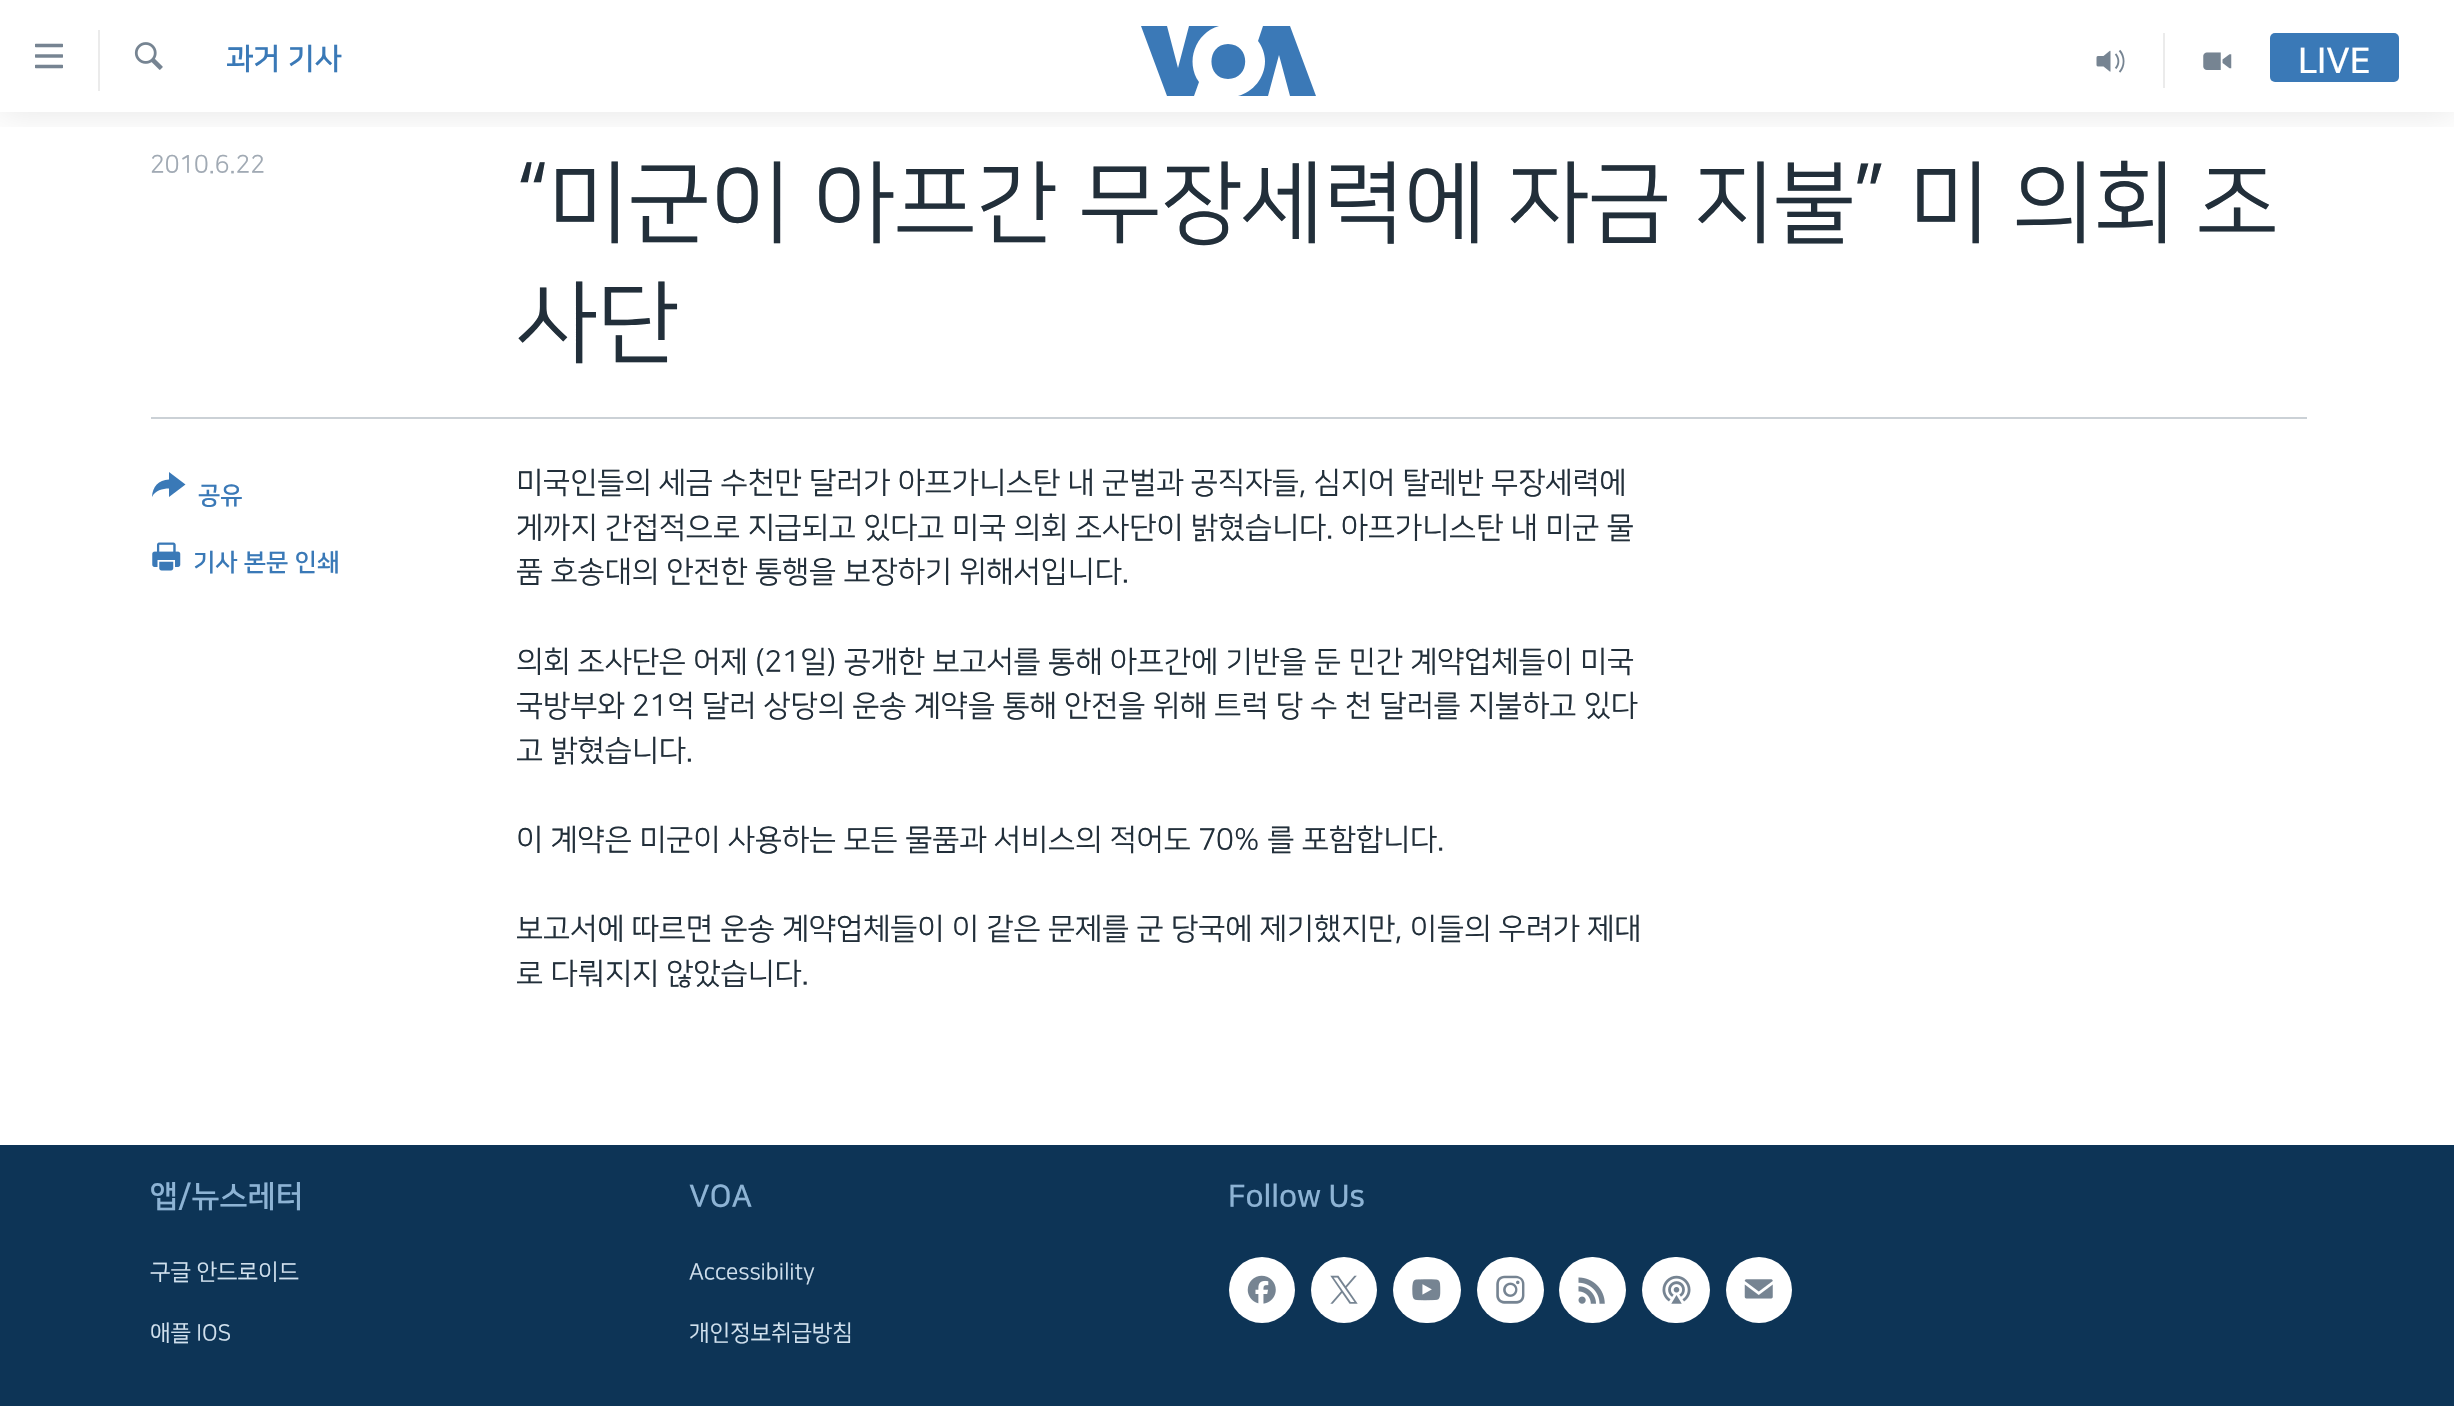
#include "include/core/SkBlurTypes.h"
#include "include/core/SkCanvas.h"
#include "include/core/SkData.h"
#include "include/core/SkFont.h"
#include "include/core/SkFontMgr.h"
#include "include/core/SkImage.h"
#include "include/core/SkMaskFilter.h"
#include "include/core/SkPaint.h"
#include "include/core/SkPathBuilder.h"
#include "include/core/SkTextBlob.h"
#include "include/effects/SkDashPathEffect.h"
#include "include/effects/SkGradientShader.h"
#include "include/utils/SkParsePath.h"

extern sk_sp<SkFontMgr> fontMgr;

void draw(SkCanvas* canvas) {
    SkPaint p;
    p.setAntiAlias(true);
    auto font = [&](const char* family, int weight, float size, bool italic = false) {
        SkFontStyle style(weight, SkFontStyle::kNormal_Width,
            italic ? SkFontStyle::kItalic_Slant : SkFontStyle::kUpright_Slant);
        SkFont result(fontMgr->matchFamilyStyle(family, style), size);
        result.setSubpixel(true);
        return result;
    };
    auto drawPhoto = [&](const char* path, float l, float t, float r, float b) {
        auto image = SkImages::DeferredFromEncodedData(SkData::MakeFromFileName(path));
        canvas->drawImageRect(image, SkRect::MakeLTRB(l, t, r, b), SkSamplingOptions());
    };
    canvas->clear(0xFFFFFFFF);
    canvas->save();
    canvas->clipRect(SkRect::MakeLTRB(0, 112, 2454, 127));
    p.setColor(0x1A000000);
    p.setMaskFilter(SkMaskFilter::MakeBlur(kNormal_SkBlurStyle, 17.5f));
    canvas->drawRect(SkRect::MakeLTRB(0, 0, 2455, 112), p);
    p.setMaskFilter(nullptr);
    canvas->restore();
    drawPhoto("media/1.png", 35, 43, 63, 69);
    p.setColor(0xFFEBEBEB);
    canvas->drawRect(SkRect::MakeLTRB(98, 30, 100, 91), p);
    drawPhoto("media/2.png", 134, 42, 163, 70);
    auto font1 = font("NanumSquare", 700, 29.75f);
    p.setColor(0xFF3A79B7);
    canvas->drawString("과거 기사", 226, 68, font1, p);
    p.setColor(0xFF3B79B7);
    canvas->drawPath(SkPathBuilder().moveTo(1199, 82).lineTo(1194, 96).lineTo(1167, 96).lineTo(1141, 26).lineTo(1167, 26).lineTo(1178, 68).lineTo(1189, 26).lineTo(1219, 26).cubicTo(1195, 33, 1185, 62, 1199, 82).close().moveTo(1228, 44).cubicTo(1206, 44, 1206, 79, 1228, 79).cubicTo(1251, 79, 1251, 44, 1228, 44).close().moveTo(1265, 61).cubicTo(1265, 78, 1253, 92, 1238, 96).lineTo(1268, 96).lineTo(1279, 55).lineTo(1290, 96).lineTo(1316, 96).lineTo(1290, 26).lineTo(1263, 26).lineTo(1258, 41).cubicTo(1262, 46, 1265, 54, 1265, 61).close().detach(), p);
    p.setColor(0xFFEBEBEB);
    canvas->drawRect(SkRect::MakeLTRB(2163, 33, 2165, 88), p);
    drawPhoto("media/3.png", 2096, 49, 2125, 73);
    drawPhoto("media/4.png", 2203, 52, 2232, 70);
    p.setColor(0xFF3A79B7);
    canvas->drawRoundRect(SkRect::MakeLTRB(2270, 33, 2399, 82), 5, 5, p);
    auto font2 = font("NanumSquare", 700, 35);
    p.setColor(0xFFFFFFFF);
    canvas->drawString("LIVE", 2298, 72, font2, p);
    auto font3 = font("NanumSquare", 400, 24.5f);
    p.setColor(0xFFA1AAB4);
    canvas->drawString("2010.6.22", 150, 172, font3, p);
    auto font4 = font("NanumSquare", 400, 89.25f);
    p.setColor(0xFF222F3A);
    canvas->drawString("“미군이 아프간 무장세력에 자금 지불” 미 의회 조", 516, 231, font4, p);
    canvas->drawString("사단", 516, 351, font4, p);
    p.setColor(0xFFCBD1D6);
    canvas->drawRect(SkRect::MakeLTRB(151, 417, 2307, 419), p);
    p.setColor(0xFF3A79B7);
    canvas->drawPath(SkPathBuilder().moveTo(152, 497).cubicTo(152.5f, 486.5f, 158.5f, 480, 169, 479.5f).lineTo(169, 472).lineTo(185.5f, 484.5f).lineTo(169, 497).lineTo(169, 488.5f).cubicTo(162.5f, 488.5f, 155, 490.5f, 152, 497).close().detach(), p);
    auto font5 = font("NanumSquare", 700, 24.5f);
    canvas->drawString("공유", 198, 503, font5, p);
    drawPhoto("media/5.png", 152, 542, 181, 571);
    canvas->drawString("기사 본문 인쇄", 193, 570, font5, p);
    auto font6 = font("NanumSquare", 400, 29.75f);
    p.setColor(0xFF222F3A);
    {
        const struct { const char* s; float x, y; } items[] = {
            {"미국인들의 세금 수천만 달러가 아프가니스탄 내 군벌과 공직자들, 심지어 탈레반 무장세력에", 516, 492},
            {"게까지 간접적으로 지급되고 있다고 미국 의회 조사단이 밝혔습니다. 아프가니스탄 내 미군 물", 516, 537},
            {"품 호송대의 안전한 통행을 보장하기 위해서입니다.", 516, 581},
            {"의회 조사단은 어제 (21일) 공개한 보고서를 통해 아프간에 기반을 둔 민간 계약업체들이 미국", 516, 671},
            {"국방부와 21억 달러 상당의 운송 계약을 통해 안전을 위해 트럭 당 수 천 달러를 지불하고 있다", 516, 715},
            {"고 밝혔습니다.", 516, 760},
            {"이 계약은 미군이 사용하는 모든 물품과 서비스의 적어도 70% 를 포함합니다.", 516, 849},
            {"보고서에 따르면 운송 계약업체들이 이 같은 문제를 군 당국에 제기했지만, 이들의 우려가 제대", 516, 938},
            {"로 다뤄지지 않았습니다.", 516, 983},
        };
        for (auto [s, x, y] : items) {
            canvas->drawString(s, x, y, font6, p);
        }
    }
    p.setColor(0xFF0D3456);
    canvas->drawRect(SkRect::MakeLTRB(0, 1145, 2454, 1406), p);
    auto font7 = font("NanumSquare", 700, 30.75f);
    p.setColor(0xFF8DB3D4);
    canvas->drawString("앱/뉴스레터", 150, 1206, font7, p);
    auto font8 = font("NanumSquare", 400, 22.5f);
    p.setColor(0xFFD1E1EE);
    canvas->drawString("구글 안드로이드", 150, 1279, font8, p);
    canvas->drawString("애플 IOS", 150, 1340, font8, p);
    p.setColor(0xFF8DB3D4);
    canvas->drawString("VOA", 689, 1206, font7, p);
    p.setColor(0xFFD1E1EE);
    canvas->drawString("Accessibility", 689, 1279, font8, p);
    canvas->drawString("개인정보취급방침", 689, 1340, font8, p);
    p.setColor(0xFF8DB3D4);
    canvas->drawString("Follow Us", 1228, 1206, font7, p);
    p.setColor(0xFFFFFFFF);
    canvas->drawCircle(1262, 1290, 33, p);
    drawPhoto("media/6.png", 1247, 1275, 1276, 1304);
    canvas->drawCircle(1344, 1290, 33, p);
    drawPhoto("media/7.png", 1330, 1275, 1358, 1304);
    canvas->drawRoundRect(SkRect::MakeLTRB(1393, 1257, 1461, 1323), 33, 33, p);
    drawPhoto("media/8.png", 1412, 1279, 1441, 1301);
    canvas->drawRoundRect(SkRect::MakeLTRB(1477, 1257, 1544, 1323), 33, 33, p);
    drawPhoto("media/9.png", 1496, 1275, 1525, 1304);
    canvas->drawRoundRect(SkRect::MakeLTRB(1559, 1257, 1626, 1323), 33, 33, p);
    drawPhoto("media/10.png", 1578, 1277, 1605, 1304);
    canvas->drawRoundRect(SkRect::MakeLTRB(1642, 1257, 1710, 1323), 33, 33, p);
    drawPhoto("media/11.png", 1662, 1275, 1691, 1304);
    canvas->drawCircle(1759, 1290, 33, p);
    drawPhoto("media/12.png", 1744, 1279, 1773, 1299);
}
